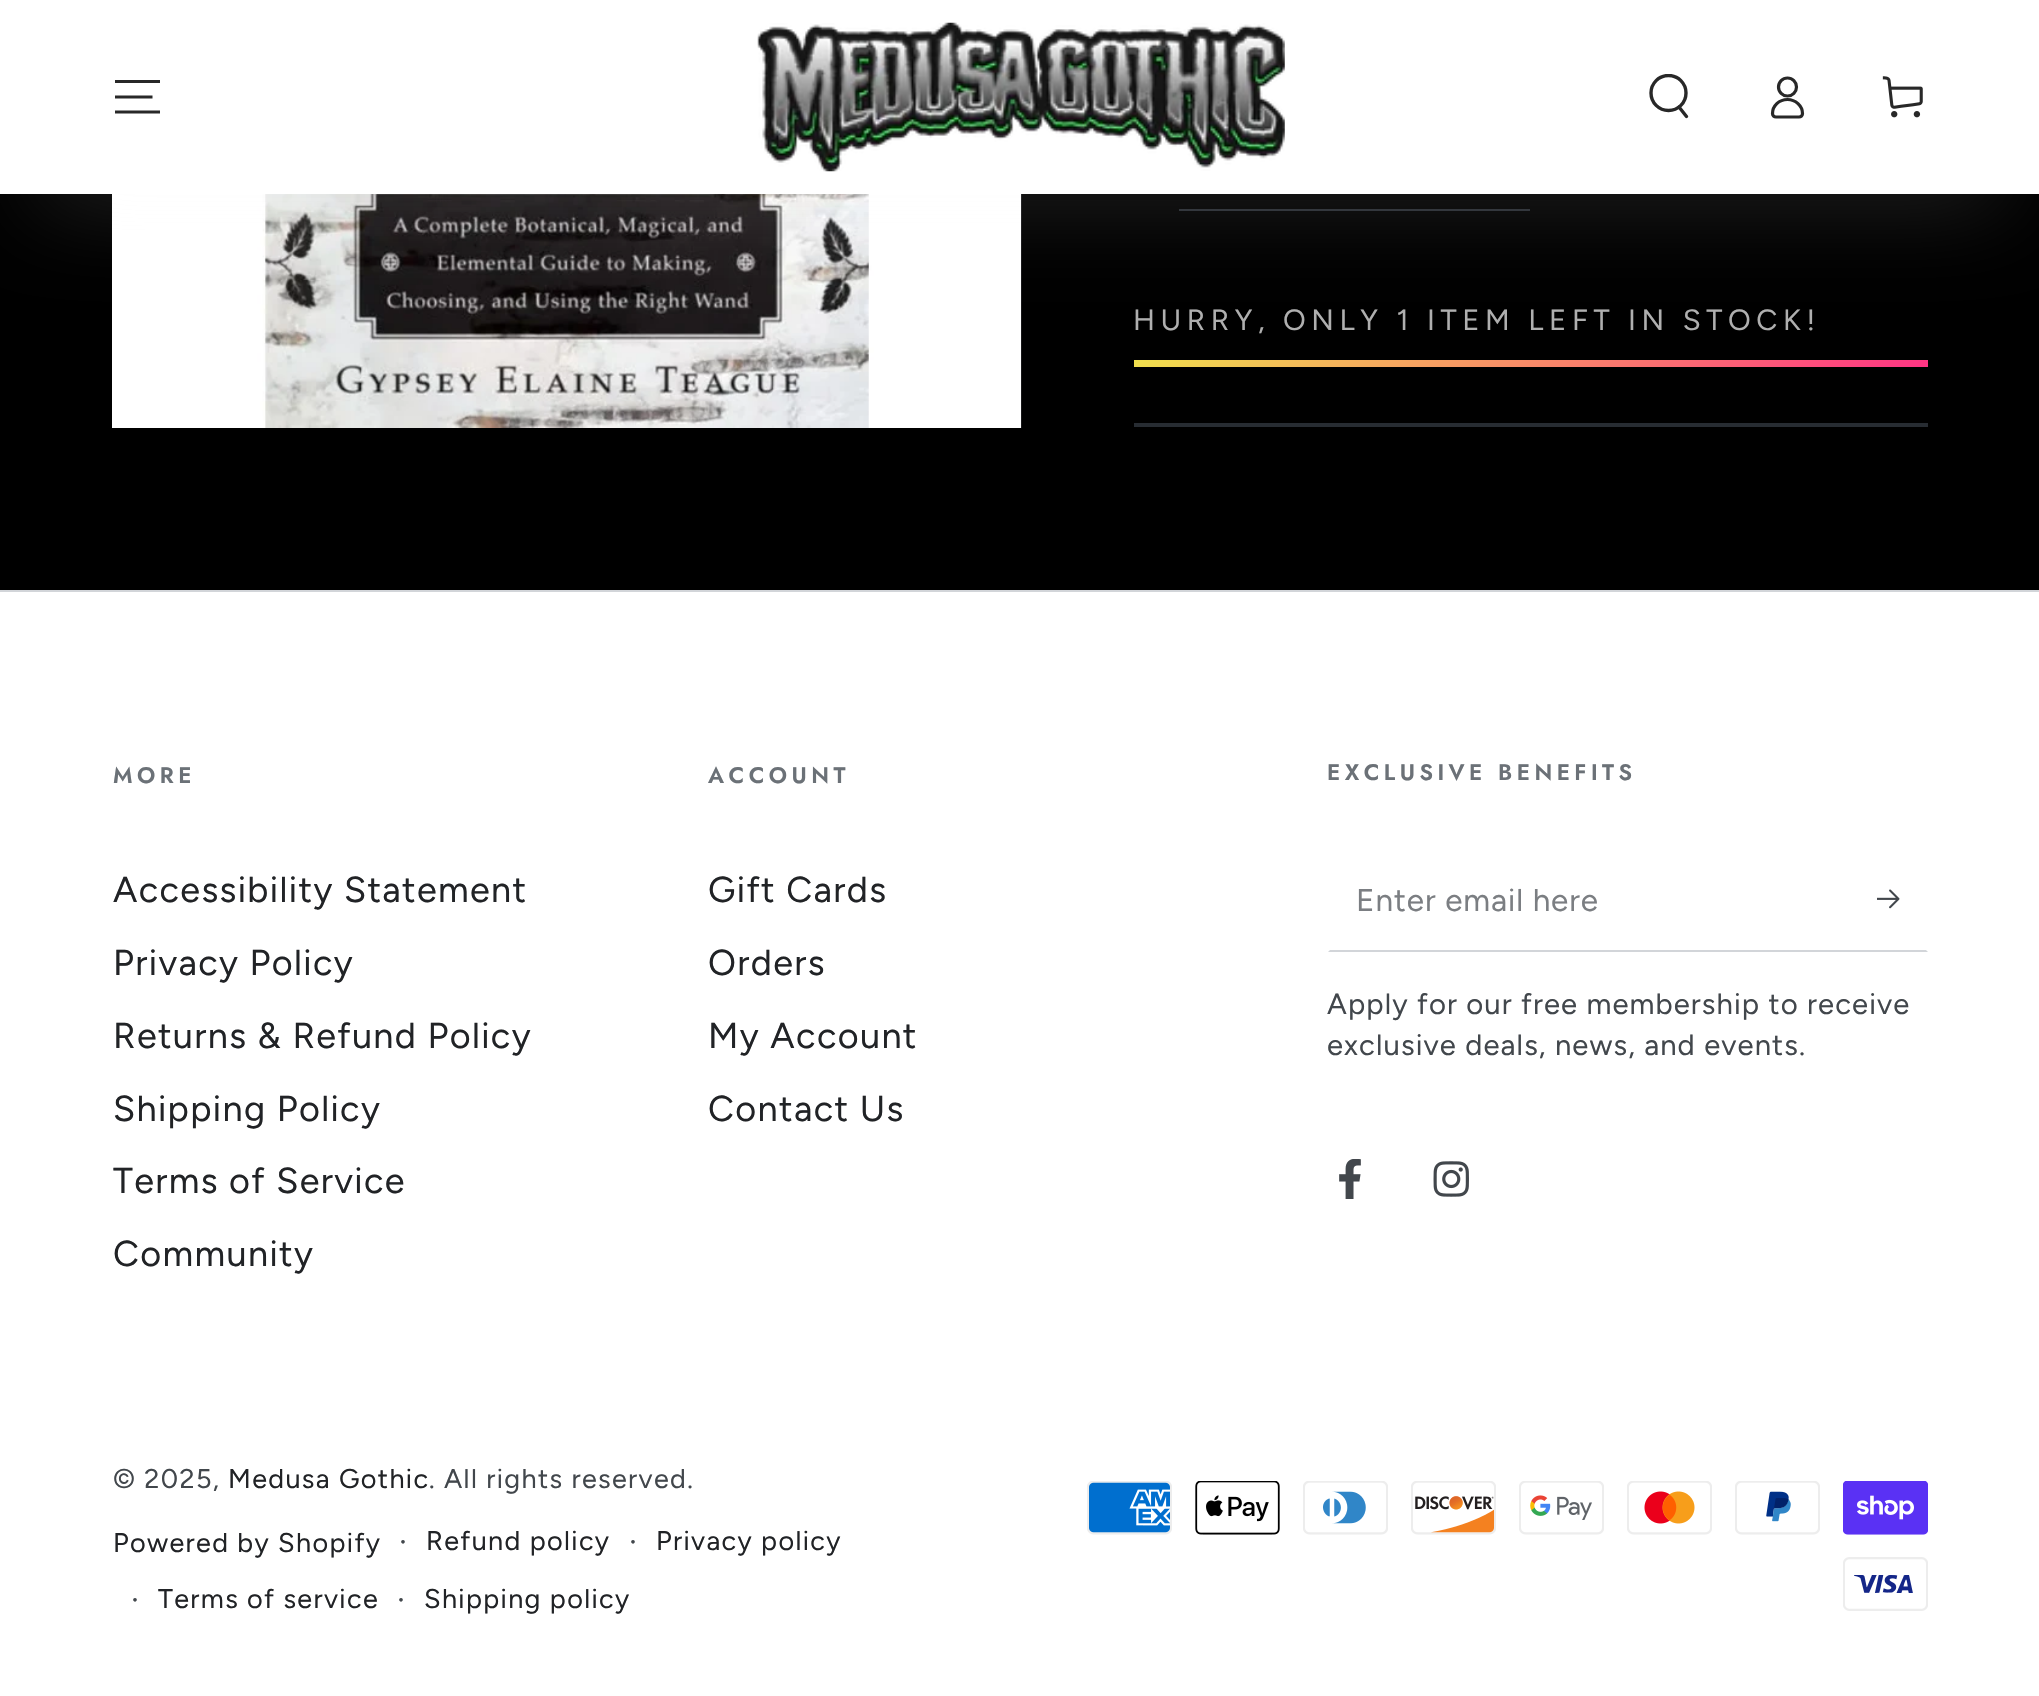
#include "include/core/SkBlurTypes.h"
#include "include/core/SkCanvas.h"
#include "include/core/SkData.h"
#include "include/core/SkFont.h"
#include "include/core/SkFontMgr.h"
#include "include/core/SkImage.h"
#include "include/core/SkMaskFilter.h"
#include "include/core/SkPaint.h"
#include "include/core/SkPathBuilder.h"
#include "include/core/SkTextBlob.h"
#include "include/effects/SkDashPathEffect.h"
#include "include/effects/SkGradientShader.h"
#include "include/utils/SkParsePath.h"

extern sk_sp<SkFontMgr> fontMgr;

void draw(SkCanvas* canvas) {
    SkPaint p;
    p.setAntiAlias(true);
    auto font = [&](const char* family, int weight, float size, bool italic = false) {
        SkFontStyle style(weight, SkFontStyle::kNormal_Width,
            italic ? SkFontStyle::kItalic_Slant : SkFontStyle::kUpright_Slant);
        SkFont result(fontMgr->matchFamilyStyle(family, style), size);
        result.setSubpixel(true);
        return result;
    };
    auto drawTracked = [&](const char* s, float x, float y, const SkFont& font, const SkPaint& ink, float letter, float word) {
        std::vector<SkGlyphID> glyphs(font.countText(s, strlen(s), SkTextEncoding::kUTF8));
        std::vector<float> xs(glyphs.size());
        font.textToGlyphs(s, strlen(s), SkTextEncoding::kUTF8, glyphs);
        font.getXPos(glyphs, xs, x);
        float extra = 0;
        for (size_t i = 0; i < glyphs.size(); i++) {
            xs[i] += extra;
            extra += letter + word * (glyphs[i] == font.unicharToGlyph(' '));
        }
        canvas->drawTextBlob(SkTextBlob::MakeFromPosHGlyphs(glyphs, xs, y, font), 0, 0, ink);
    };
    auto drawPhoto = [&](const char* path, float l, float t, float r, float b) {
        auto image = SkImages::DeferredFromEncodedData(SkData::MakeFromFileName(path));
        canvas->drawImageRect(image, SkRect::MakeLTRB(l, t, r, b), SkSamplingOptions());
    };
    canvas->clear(0xFF000000);
    p.setColor(0xFF18181A);
    canvas->drawRect(SkRect::MakeLTRB(1021, 194, 1022, 428), p);
    drawPhoto("media/3.png", 112, 194, 1021, 428);
    p.setColor(0xFF272C32);
    canvas->drawRect(SkRect::MakeLTRB(1179, 209, 1530, 211), p);
    p.setColor(0x33FAFAFA);
    p.setMaskFilter(SkMaskFilter::MakeBlur(kNormal_SkBlurStyle, 45));
    canvas->drawRoundRect(SkRect::MakeLTRB(34, 149, 2007, 194), 22.5f, 22.5f, p);
    p.setMaskFilter(nullptr);
    p.setColor(0xFFFFFFFF);
    canvas->drawRect(SkRect::MakeLTRB(0, 0, 2039, 194), p);
    p.setStyle(SkPaint::kStroke_Style);
    p.setStrokeWidth(3.1f);
    p.setColor(0xFF282828);
    canvas->drawPath(SkPathBuilder().moveTo(115, 112).lineTo(160, 112).moveTo(115, 97).lineTo(152.5f, 97).moveTo(115, 81.5f).lineTo(160, 81.5f).detach(), p);
    drawPhoto("media/1.png", 757, 22, 1285, 172);
    canvas->save();
    canvas->clipRect(SkRect::MakeLTRB(1647, 74, 1692, 119));
    p.setStrokeWidth(3.4f);
    canvas->drawCircle(1668.5f, 93, 17.5f, p);
    canvas->restore();
    p.setStrokeCap(SkPaint::kRound_Cap);
    canvas->drawPath(SkPathBuilder().moveTo(1679, 107).lineTo(1686.5f, 116.5f).detach(), p);
    p.setStrokeWidth(3.2f);
    p.setStrokeCap(SkPaint::kButt_Cap);
    canvas->drawPath(SkPathBuilder().moveTo(1787.5f, 99.5f).cubicTo(1779, 99.5f, 1772.5f, 106, 1772.5f, 113.5f).cubicTo(1772.5f, 115.5f, 1774, 117, 1776, 117).lineTo(1799, 117).cubicTo(1801, 117, 1802.5f, 115.5f, 1802.5f, 113.5f).cubicTo(1802.5f, 106, 1795.5f, 99.5f, 1787.5f, 99.5f).close().detach(), p);
    canvas->drawCircle(1787.5f, 87, 9, p);
    drawPhoto("media/2.png", 1882, 76, 1923, 118);
    auto font1 = font("Figtree", 400, 29.25f);
    p.setStyle(SkPaint::kFill_Style);
    p.setColor(0xFFAFAFAF);
    drawTracked("HURRY, ONLY 1 ITEM LEFT IN STOCK!", 1133, 330, font1, p, 5.6f, 0);
    {
        const SkColor colors[] = {0xFFFF3484, 0xFFF1E04D};
        const float stops[] = {0, 1};
        const SkPoint ends[] = {{1663, 552}, {1399, 175}};
        p.setShader(SkGradientShader::MakeLinear(ends, colors, stops, 2, SkTileMode::kClamp));
        p.setAlpha(255);
    }
    canvas->drawRect(SkRect::MakeLTRB(1134, 360, 1928, 367), p);
    p.setShader(nullptr);
    {
        const struct { float l, t, r, b; SkColor color; } items[] = {
            {1134, 423, 1928, 427, 0xFF272C32},
            {0, 592, 2039, 1696, 0xFFFFFFFF},
            {0, 590, 2039, 592, 0xFFD2D5D9},
        };
        for (auto [l, t, r, b, color] : items) {
            p.setColor(color);
            canvas->drawRect(SkRect::MakeLTRB(l, t, r, b), p);
        }
    }
    auto font2 = font("Jost", 600, 22.5f);
    p.setColor(0xFF6B7177);
    drawTracked("MORE", 113, 783, font2, p, 4.5f, 0);
    auto font3 = font("Figtree", 400, 36);
    p.setColor(0xFF212326);
    {
        const struct { const char* s; float x, y; } items[] = {
            {"Accessibility Statement", 113, 902},
            {"Privacy Policy", 113, 975},
            {"Returns & Refund Policy", 113, 1048},
            {"Shipping Policy", 113, 1121},
            {"Terms of Service", 113, 1193},
            {"Community", 113, 1266},
        };
        for (auto [s, x, y] : items) {
            drawTracked(s, x, y, font3, p, 1.35f, 0);
        }
    }
    p.setColor(0xFF6B7177);
    drawTracked("ACCOUNT", 708, 783, font2, p, 4.5f, 0);
    p.setColor(0xFF212326);
    {
        const struct { const char* s; float x, y; } items[] = {
            {"Gift Cards", 708, 902},
            {"Orders", 708, 975},
            {"My Account", 708, 1048},
            {"Contact Us", 708, 1121},
        };
        for (auto [s, x, y] : items) {
            drawTracked(s, x, y, font3, p, 1.35f, 0);
        }
    }
    p.setColor(0xFF6B7177);
    drawTracked("EXCLUSIVE BENEFITS", 1327, 780, font2, p, 4.5f, 0);
    p.setColor(0xFFD2D5D9);
    canvas->drawPath(SkPathBuilder().moveTo(1928, 952).lineTo(1328, 952).lineTo(1330, 950).lineTo(1926, 950).close().detach(), p);
    auto font4 = font("Figtree", 400, 31.5f);
    p.setColor(0xFF7B7E82);
    drawTracked("Enter email here", 1356, 911, font4, p, 0.9f, 0);
    drawPhoto("media/4.png", 1877, 889, 1900, 909);
    p.setColor(0xFF42474C);
    drawTracked("Apply for our free membership to receive", 1327, 1014, font1, p, 1.1f, 0);
    drawTracked("exclusive deals, news, and events.", 1327, 1055, font1, p, 1.1f, 0);
    drawPhoto("media/5.png", 1339, 1159, 1361, 1199);
    drawPhoto("media/6.png", 1433, 1161, 1469, 1197);
    auto font5 = font("Figtree", 400, 27);
    drawTracked("© 2025,", 113, 1488, font5, p, 1.35f, 0);
    p.setColor(0xFF212326);
    drawTracked("Medusa Gothic", 228, 1488, font5, p, 1.35f, 0);
    p.setColor(0xFF42474C);
    drawTracked(". All rights reserved.", 429, 1488, font5, p, 1.35f, 0);
    p.setColor(0xFF212326);
    drawTracked("Powered by Shopify", 113, 1552, font5, p, 1.35f, 0);
    p.setColor(0xFF42474C);
    drawTracked("·", 399, 1552, font4, p, 1.35f, 0);
    p.setColor(0xFF212326);
    drawTracked("Refund policy", 426, 1550, font5, p, 1.35f, 0);
    p.setColor(0xFF42474C);
    drawTracked("·", 629, 1552, font4, p, 1.35f, 0);
    p.setColor(0xFF212326);
    drawTracked("Privacy policy", 656, 1550, font5, p, 1.35f, 0);
    p.setColor(0xFF42474C);
    drawTracked("·", 131, 1610, font4, p, 1.35f, 0);
    p.setColor(0xFF212326);
    drawTracked("Terms of service", 158, 1608, font5, p, 1.35f, 0);
    p.setColor(0xFF42474C);
    drawTracked("·", 397, 1610, font4, p, 1.35f, 0);
    p.setColor(0xFF212326);
    drawTracked("Shipping policy", 424, 1608, font5, p, 1.35f, 0);
    drawPhoto("media/7.png", 1087, 1481, 1172, 1535);
    drawPhoto("media/8.png", 1195, 1481, 1280, 1535);
    drawPhoto("media/9.png", 1303, 1481, 1388, 1535);
    drawPhoto("media/10.png", 1411, 1481, 1496, 1535);
    drawPhoto("media/11.png", 1519, 1481, 1604, 1535);
    drawPhoto("media/12.png", 1627, 1481, 1712, 1535);
    drawPhoto("media/13.png", 1735, 1481, 1820, 1535);
    drawPhoto("media/14.png", 1843, 1481, 1928, 1535);
    drawPhoto("media/15.png", 1843, 1557, 1928, 1611);
}
